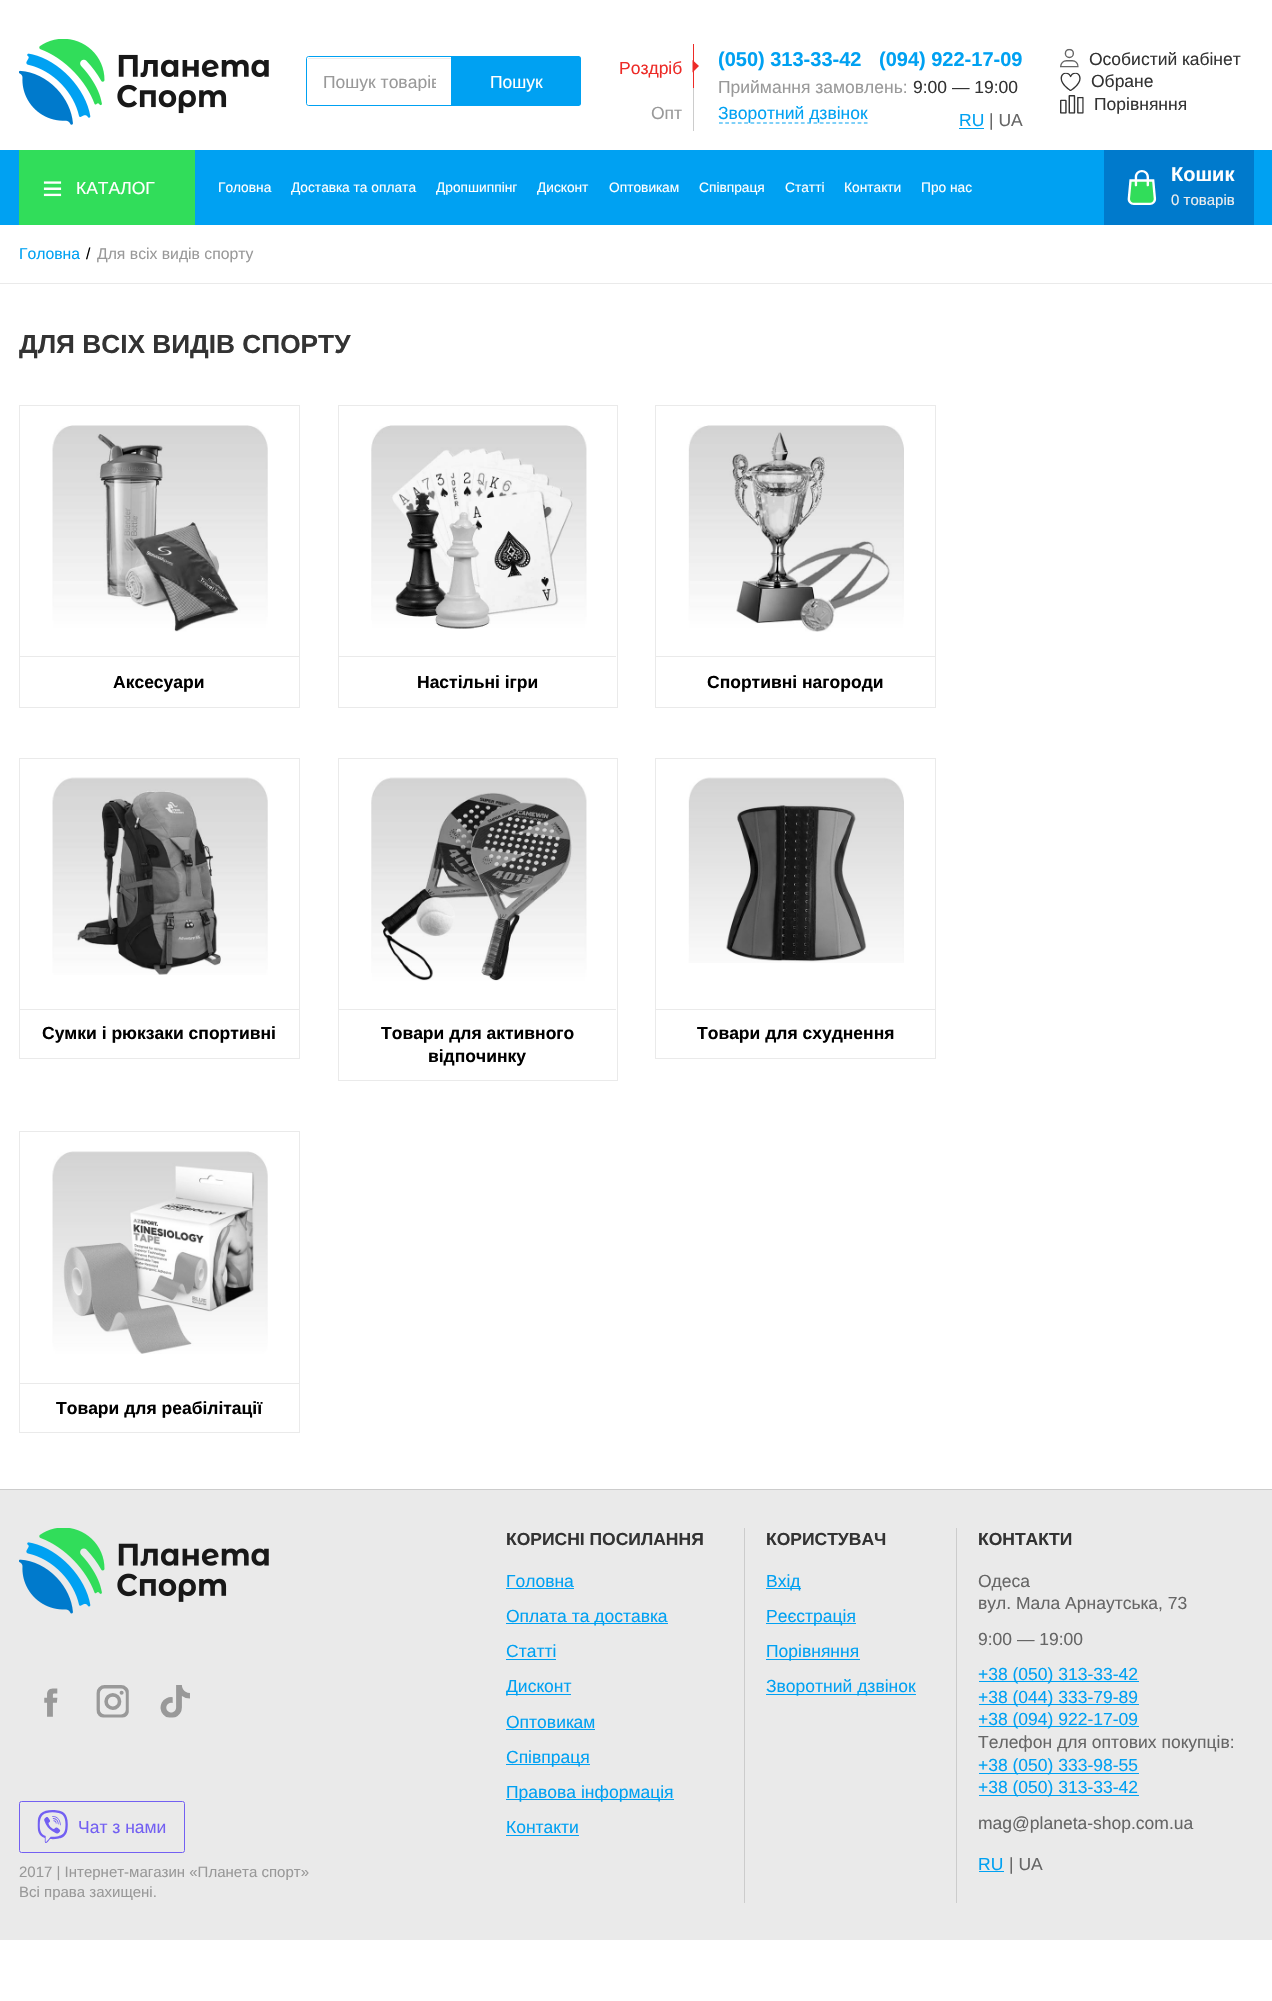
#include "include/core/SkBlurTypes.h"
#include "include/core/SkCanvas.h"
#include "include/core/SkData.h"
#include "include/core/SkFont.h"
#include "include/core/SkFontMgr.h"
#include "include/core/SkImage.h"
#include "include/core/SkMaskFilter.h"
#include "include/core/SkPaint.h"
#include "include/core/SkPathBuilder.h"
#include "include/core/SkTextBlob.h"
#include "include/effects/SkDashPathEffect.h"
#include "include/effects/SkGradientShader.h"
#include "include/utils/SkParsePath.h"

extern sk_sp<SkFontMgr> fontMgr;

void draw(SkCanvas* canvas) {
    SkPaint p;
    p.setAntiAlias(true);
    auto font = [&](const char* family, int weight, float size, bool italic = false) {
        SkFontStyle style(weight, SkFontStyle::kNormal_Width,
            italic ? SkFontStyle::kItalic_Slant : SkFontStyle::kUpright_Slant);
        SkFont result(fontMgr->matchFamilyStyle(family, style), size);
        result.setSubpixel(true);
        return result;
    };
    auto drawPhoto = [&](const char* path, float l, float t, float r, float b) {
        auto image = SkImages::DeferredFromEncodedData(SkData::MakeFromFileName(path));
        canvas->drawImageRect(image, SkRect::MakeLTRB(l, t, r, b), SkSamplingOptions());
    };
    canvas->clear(0xFFFFFFFF);
    drawPhoto("media/1.png", 19, 39, 269, 125);
    p.setColor(0xFFECECEC);
    canvas->drawPath(SkPathBuilder().moveTo(309, 59).lineTo(451, 59).lineTo(451, 58).lineTo(308, 58).lineTo(308, 60).cubicTo(308, 59, 308, 59, 309, 59).close().detach(), p);
    p.setStyle(SkPaint::kStroke_Style);
    p.setStrokeWidth(1);
    p.setColor(0xFF00A1F2);
    canvas->drawPath(SkPathBuilder().moveTo(308.5f, 56.5f).lineTo(452.5f, 56.5f).lineTo(452.5f, 105.5f).lineTo(308.5f, 105.5f).cubicTo(307.5f, 105.5f, 306.5f, 104.5f, 306.5f, 103.5f).lineTo(306.5f, 58.5f).cubicTo(306.5f, 57.5f, 307.5f, 56.5f, 308.5f, 56.5f).close().detach(), p);
    canvas->save();
    canvas->clipRect(SkRect::MakeLTRB(323, 71, 436, 91));
    auto font1 = font("Liberation Sans", 400, 17.5f);
    p.setStyle(SkPaint::kFill_Style);
    p.setColor(0xFF999999);
    canvas->drawString("Пошук товарів", 323, 88, font1, p);
    canvas->restore();
    p.setColor(0xFF00A1F2);
    canvas->drawPath(SkPathBuilder().moveTo(451, 56).lineTo(578.5f, 56).cubicTo(580, 56, 581, 57, 581, 58.5f).lineTo(581, 103.5f).cubicTo(581, 105, 580, 106, 578.5f, 106).lineTo(451, 106).close().detach(), p);
    p.setColor(0xFFFFFFFF);
    canvas->drawString("Пошук", 490, 88, font1, p);
    p.setColor(0xFFCCCCCC);
    canvas->drawRect(SkRect::MakeLTRB(693, 88, 694, 131), p);
    p.setColor(0xFFED2B27);
    canvas->drawPath(SkPathBuilder().moveTo(692.5f, 72.5f).lineTo(692.5f, 60).lineTo(699, 66).close().detach(), p);
    canvas->drawRect(SkRect::MakeLTRB(693, 44, 694, 88), p);
    canvas->drawString("Роздріб", 619, 74, font1, p);
    p.setColor(0xFF999999);
    canvas->drawString("Опт", 651, 119, font1, p);
    auto font2 = font("Liberation Sans", 700, 20);
    p.setColor(0xFF00A1F2);
    canvas->drawString("(050) 313-33-42", 718, 66, font2, p);
    canvas->drawString("(094) 922-17-09", 879, 66, font2, p);
    p.setColor(0xFF999999);
    canvas->drawString("Приймання замовлень:", 718, 93, font1, p);
    p.setColor(0xFF333333);
    canvas->drawString("9:00 — 19:00", 913, 93, font1, p);
    p.setStyle(SkPaint::kStroke_Style);
    p.setStrokeWidth(1.2f);
    p.setColor(0xFF00A1F2);
    p.setPathEffect(SkDashPathEffect::Make({{3.75f, 2.55f}}, 0));
    canvas->drawPath(SkPathBuilder().moveTo(719, 123).lineTo(867.5f, 123).detach(), p);
    p.setPathEffect(nullptr);
    p.setStyle(SkPaint::kFill_Style);
    canvas->drawString("Зворотний дзвінок", 718, 119, font1, p);
    canvas->drawString("RU", 959, 126, font1, p);
    canvas->drawRect(SkRect::MakeLTRB(959, 128, 984, 129), p);
    p.setColor(0xFF666666);
    canvas->drawString("| UA", 989, 126, font1, p);
    drawPhoto("media/2.png", 1060, 48, 1079, 68);
    p.setColor(0xFF333333);
    canvas->drawString("Особистий кабінет", 1089, 65, font1, p);
    drawPhoto("media/3.png", 1060, 72, 1081, 91);
    canvas->drawString("Обране", 1091, 87, font1, p);
    drawPhoto("media/4.png", 1060, 95, 1084, 114);
    canvas->drawString("Порівняння", 1094, 110, font1, p);
    p.setColor(0xFF00A1F2);
    canvas->drawRect(SkRect::MakeLTRB(0, 150, 1272, 225), p);
    p.setColor(0xFF31DD5A);
    canvas->drawRect(SkRect::MakeLTRB(19, 150, 195, 225), p);
    drawPhoto("media/5.png", 43, 181, 62, 197);
    p.setColor(0xFFFFFFFF);
    canvas->drawString("КАТАЛОГ", 76, 194, font1, p);
    auto font3 = font("Liberation Sans", 400, 13.75f);
    {
        const struct { const char* s; float x, y; } items[] = {
            {"Головна", 218, 192},
            {"Доставка та оплата", 291, 192},
            {"Дропшиппінг", 436, 192},
            {"Дисконт", 537, 192},
            {"Оптовикам", 609, 192},
            {"Співпраця", 699, 192},
            {"Статті", 785, 192},
            {"Контакти", 844, 192},
            {"Про нас", 921, 192},
        };
        for (auto [s, x, y] : items) {
            canvas->drawString(s, x, y, font3, p);
        }
    }
    p.setColor(0xFF007ACC);
    canvas->drawRect(SkRect::MakeLTRB(1104, 150, 1254, 225), p);
    drawPhoto("media/6.png", 1127, 170, 1157, 205);
    p.setColor(0xFFFFFFFF);
    canvas->drawString("Кошик", 1171, 181, font2, p);
    auto font4 = font("Liberation Sans", 400, 15);
    p.setColor(0xFFEEEEEE);
    canvas->drawString("0 товарів", 1171, 205, font4, p);
    p.setColor(0xFFEAEAEA);
    canvas->drawRect(SkRect::MakeLTRB(0, 283, 1272, 284), p);
    auto font5 = font("Liberation Sans", 400, 15.75f);
    p.setColor(0xFF00A1F2);
    canvas->drawString("Головна", 19, 259, font5, p);
    p.setColor(0xFF000000);
    canvas->drawString("/", 86, 259, font5, p);
    p.setColor(0xFF999999);
    canvas->drawString("Для всіх видів спорту", 97, 259, font5, p);
    auto font6 = font("Liberation Sans", 700, 26.25f);
    p.setColor(0xFF333333);
    canvas->drawString("ДЛЯ ВСІХ ВИДІВ СПОРТУ", 19, 353, font6, p);
    p.setStyle(SkPaint::kStroke_Style);
    p.setStrokeWidth(1);
    p.setColor(0xFFEAEAEA);
    canvas->drawRect(SkRect::MakeLTRB(19.5f, 405.5f, 299.5f, 707.5f), p);
    drawPhoto("media/7.png", 52, 425, 268, 632);
    p.setStyle(SkPaint::kFill_Style);
    canvas->drawRect(SkRect::MakeLTRB(20, 656, 299, 657), p);
    auto font7 = font("Liberation Sans", 700, 17.5f);
    p.setColor(0xFF000000);
    canvas->drawString("Аксесуари", 113, 688, font7, p);
    p.setStyle(SkPaint::kStroke_Style);
    p.setColor(0xFFEAEAEA);
    canvas->drawRect(SkRect::MakeLTRB(338.5f, 405.5f, 617.5f, 707.5f), p);
    drawPhoto("media/8.png", 371, 425, 587, 629);
    p.setStyle(SkPaint::kFill_Style);
    canvas->drawRect(SkRect::MakeLTRB(339, 656, 616, 657), p);
    p.setColor(0xFF000000);
    canvas->drawString("Настільні ігри", 417, 688, font7, p);
    p.setStyle(SkPaint::kStroke_Style);
    p.setColor(0xFFEAEAEA);
    canvas->drawRect(SkRect::MakeLTRB(655.5f, 405.5f, 935.5f, 707.5f), p);
    drawPhoto("media/9.png", 688, 425, 904, 632);
    p.setStyle(SkPaint::kFill_Style);
    canvas->drawRect(SkRect::MakeLTRB(656, 656, 935, 657), p);
    p.setColor(0xFF000000);
    canvas->drawString("Спортивні нагороди", 707, 688, font7, p);
    p.setStyle(SkPaint::kStroke_Style);
    p.setColor(0xFFEAEAEA);
    canvas->drawRect(SkRect::MakeLTRB(19.5f, 758.5f, 299.5f, 1058.5f), p);
    drawPhoto("media/10.png", 52, 777, 268, 975);
    p.setStyle(SkPaint::kFill_Style);
    canvas->drawRect(SkRect::MakeLTRB(20, 1009, 299, 1010), p);
    p.setColor(0xFF000000);
    canvas->drawString("Сумки і рюкзаки спортивні", 42, 1039, font7, p);
    p.setStyle(SkPaint::kStroke_Style);
    p.setColor(0xFFEAEAEA);
    canvas->drawRect(SkRect::MakeLTRB(338.5f, 758.5f, 617.5f, 1080.5f), p);
    drawPhoto("media/11.png", 371, 777, 587, 981);
    p.setStyle(SkPaint::kFill_Style);
    canvas->drawRect(SkRect::MakeLTRB(339, 1009, 616, 1010), p);
    p.setColor(0xFF000000);
    canvas->drawString("Товари для активного", 381, 1039, font7, p);
    canvas->drawString("відпочинку", 428, 1062, font7, p);
    p.setStyle(SkPaint::kStroke_Style);
    p.setColor(0xFFEAEAEA);
    canvas->drawRect(SkRect::MakeLTRB(655.5f, 758.5f, 935.5f, 1058.5f), p);
    drawPhoto("media/12.png", 688, 777, 904, 963);
    p.setStyle(SkPaint::kFill_Style);
    canvas->drawRect(SkRect::MakeLTRB(656, 1009, 935, 1010), p);
    p.setColor(0xFF000000);
    canvas->drawString("Товари для схуднення", 697, 1039, font7, p);
    p.setStyle(SkPaint::kStroke_Style);
    p.setColor(0xFFEAEAEA);
    canvas->drawRect(SkRect::MakeLTRB(19.5f, 1131.5f, 299.5f, 1432.5f), p);
    drawPhoto("media/13.png", 52, 1151, 268, 1354);
    p.setStyle(SkPaint::kFill_Style);
    canvas->drawRect(SkRect::MakeLTRB(20, 1383, 299, 1384), p);
    p.setColor(0xFF000000);
    canvas->drawString("Товари для реабілітації", 56, 1414, font7, p);
    p.setColor(0xFFEAEAEA);
    canvas->drawRect(SkRect::MakeLTRB(0, 1490, 1272, 1940), p);
    p.setColor(0xFFCCCCCC);
    canvas->drawRect(SkRect::MakeLTRB(0, 1489, 1272, 1490), p);
    drawPhoto("media/14.png", 19, 1528, 269, 1614);
    drawPhoto("media/15.png", 44, 1688, 58, 1717);
    drawPhoto("media/16.png", 96, 1685, 129, 1718);
    drawPhoto("media/17.png", 160, 1685, 190, 1718);
    p.setStyle(SkPaint::kStroke_Style);
    p.setColor(0xFF7360F2);
    canvas->drawRoundRect(SkRect::MakeLTRB(19.5f, 1801.5f, 184.5f, 1852.5f), 2, 2, p);
    drawPhoto("media/18.png", 37, 1810, 68, 1843);
    p.setStyle(SkPaint::kFill_Style);
    canvas->drawString("Чат з нами", 78, 1833, font1, p);
    p.setColor(0xFF999999);
    canvas->drawString("2017 | Інтернет-магазин «Планета спорт»", 19, 1877, font4, p);
    canvas->drawString("Всі права захищені.", 19, 1897, font4, p);
    p.setColor(0xFF333333);
    canvas->drawString("КОРИСНІ ПОСИЛАННЯ", 506, 1545, font7, p);
    p.setColor(0xFF00A1F2);
    canvas->drawString("Головна", 506, 1587, font1, p);
    canvas->drawRect(SkRect::MakeLTRB(506, 1588, 574, 1589), p);
    canvas->drawRect(SkRect::MakeLTRB(506, 1623, 668, 1624), p);
    canvas->drawString("Оплата та доставка", 506, 1622, font1, p);
    canvas->drawString("Статті", 506, 1657, font1, p);
    canvas->drawRect(SkRect::MakeLTRB(506, 1659, 556, 1660), p);
    canvas->drawRect(SkRect::MakeLTRB(506, 1694, 571, 1695), p);
    canvas->drawString("Дисконт", 506, 1692, font1, p);
    canvas->drawString("Оптовикам", 506, 1728, font1, p);
    canvas->drawRect(SkRect::MakeLTRB(506, 1729, 595, 1730), p);
    canvas->drawRect(SkRect::MakeLTRB(506, 1764, 590, 1765), p);
    canvas->drawString("Співпраця", 506, 1763, font1, p);
    canvas->drawRect(SkRect::MakeLTRB(506, 1799, 674, 1800), p);
    canvas->drawString("Правова інформація", 506, 1798, font1, p);
    canvas->drawString("Контакти", 506, 1833, font1, p);
    canvas->drawRect(SkRect::MakeLTRB(506, 1835, 579, 1836), p);
    p.setColor(0xFFCCCCCC);
    canvas->drawRect(SkRect::MakeLTRB(744, 1528, 745, 1903), p);
    p.setColor(0xFF333333);
    canvas->drawString("КОРИСТУВАЧ", 766, 1545, font7, p);
    p.setColor(0xFF00A1F2);
    canvas->drawRect(SkRect::MakeLTRB(766, 1588, 801, 1589), p);
    canvas->drawString("Вхід", 766, 1587, font1, p);
    canvas->drawRect(SkRect::MakeLTRB(766, 1623, 856, 1624), p);
    canvas->drawString("Реєстрація", 766, 1622, font1, p);
    canvas->drawRect(SkRect::MakeLTRB(766, 1659, 860, 1660), p);
    canvas->drawString("Порівняння", 766, 1657, font1, p);
    canvas->drawRect(SkRect::MakeLTRB(766, 1694, 916, 1695), p);
    canvas->drawString("Зворотний дзвінок", 766, 1692, font1, p);
    p.setColor(0xFFCCCCCC);
    canvas->drawRect(SkRect::MakeLTRB(956, 1528, 957, 1903), p);
    p.setColor(0xFF333333);
    canvas->drawString("КОНТАКТИ", 978, 1545, font7, p);
    p.setColor(0xFF666666);
    {
        const struct { const char* s; float x, y; } items[] = {
            {"Одеса", 978, 1587},
            {"вул. Мала Арнаутська, 73", 978, 1609},
            {"9:00 — 19:00", 978, 1645},
        };
        for (auto [s, x, y] : items) {
            canvas->drawString(s, x, y, font1, p);
        }
    }
    p.setColor(0xFF00A1F2);
    canvas->drawRect(SkRect::MakeLTRB(979, 1681, 1139, 1682), p);
    canvas->drawString("+38 (050) 313-33-42", 978, 1680, font1, p);
    canvas->drawRect(SkRect::MakeLTRB(979, 1704, 1139, 1705), p);
    canvas->drawString("+38 (044) 333-79-89", 978, 1703, font1, p);
    canvas->drawRect(SkRect::MakeLTRB(979, 1726, 1139, 1727), p);
    canvas->drawString("+38 (094) 922-17-09", 978, 1725, font1, p);
    p.setColor(0xFF666666);
    canvas->drawString("Телефон для оптових покупців:", 978, 1748, font1, p);
    p.setColor(0xFF00A1F2);
    canvas->drawRect(SkRect::MakeLTRB(979, 1773, 1139, 1774), p);
    canvas->drawString("+38 (050) 333-98-55", 978, 1771, font1, p);
    canvas->drawRect(SkRect::MakeLTRB(979, 1795, 1139, 1796), p);
    canvas->drawString("+38 (050) 313-33-42", 978, 1793, font1, p);
    p.setColor(0xFF666666);
    canvas->drawString("mag@planeta-shop.com.ua", 978, 1829, font1, p);
    p.setColor(0xFF00A1F2);
    canvas->drawString("RU", 978, 1870, font1, p);
    canvas->drawRect(SkRect::MakeLTRB(979, 1871, 1004, 1872), p);
    p.setColor(0xFF666666);
    canvas->drawString("| UA", 1009, 1870, font1, p);
}
